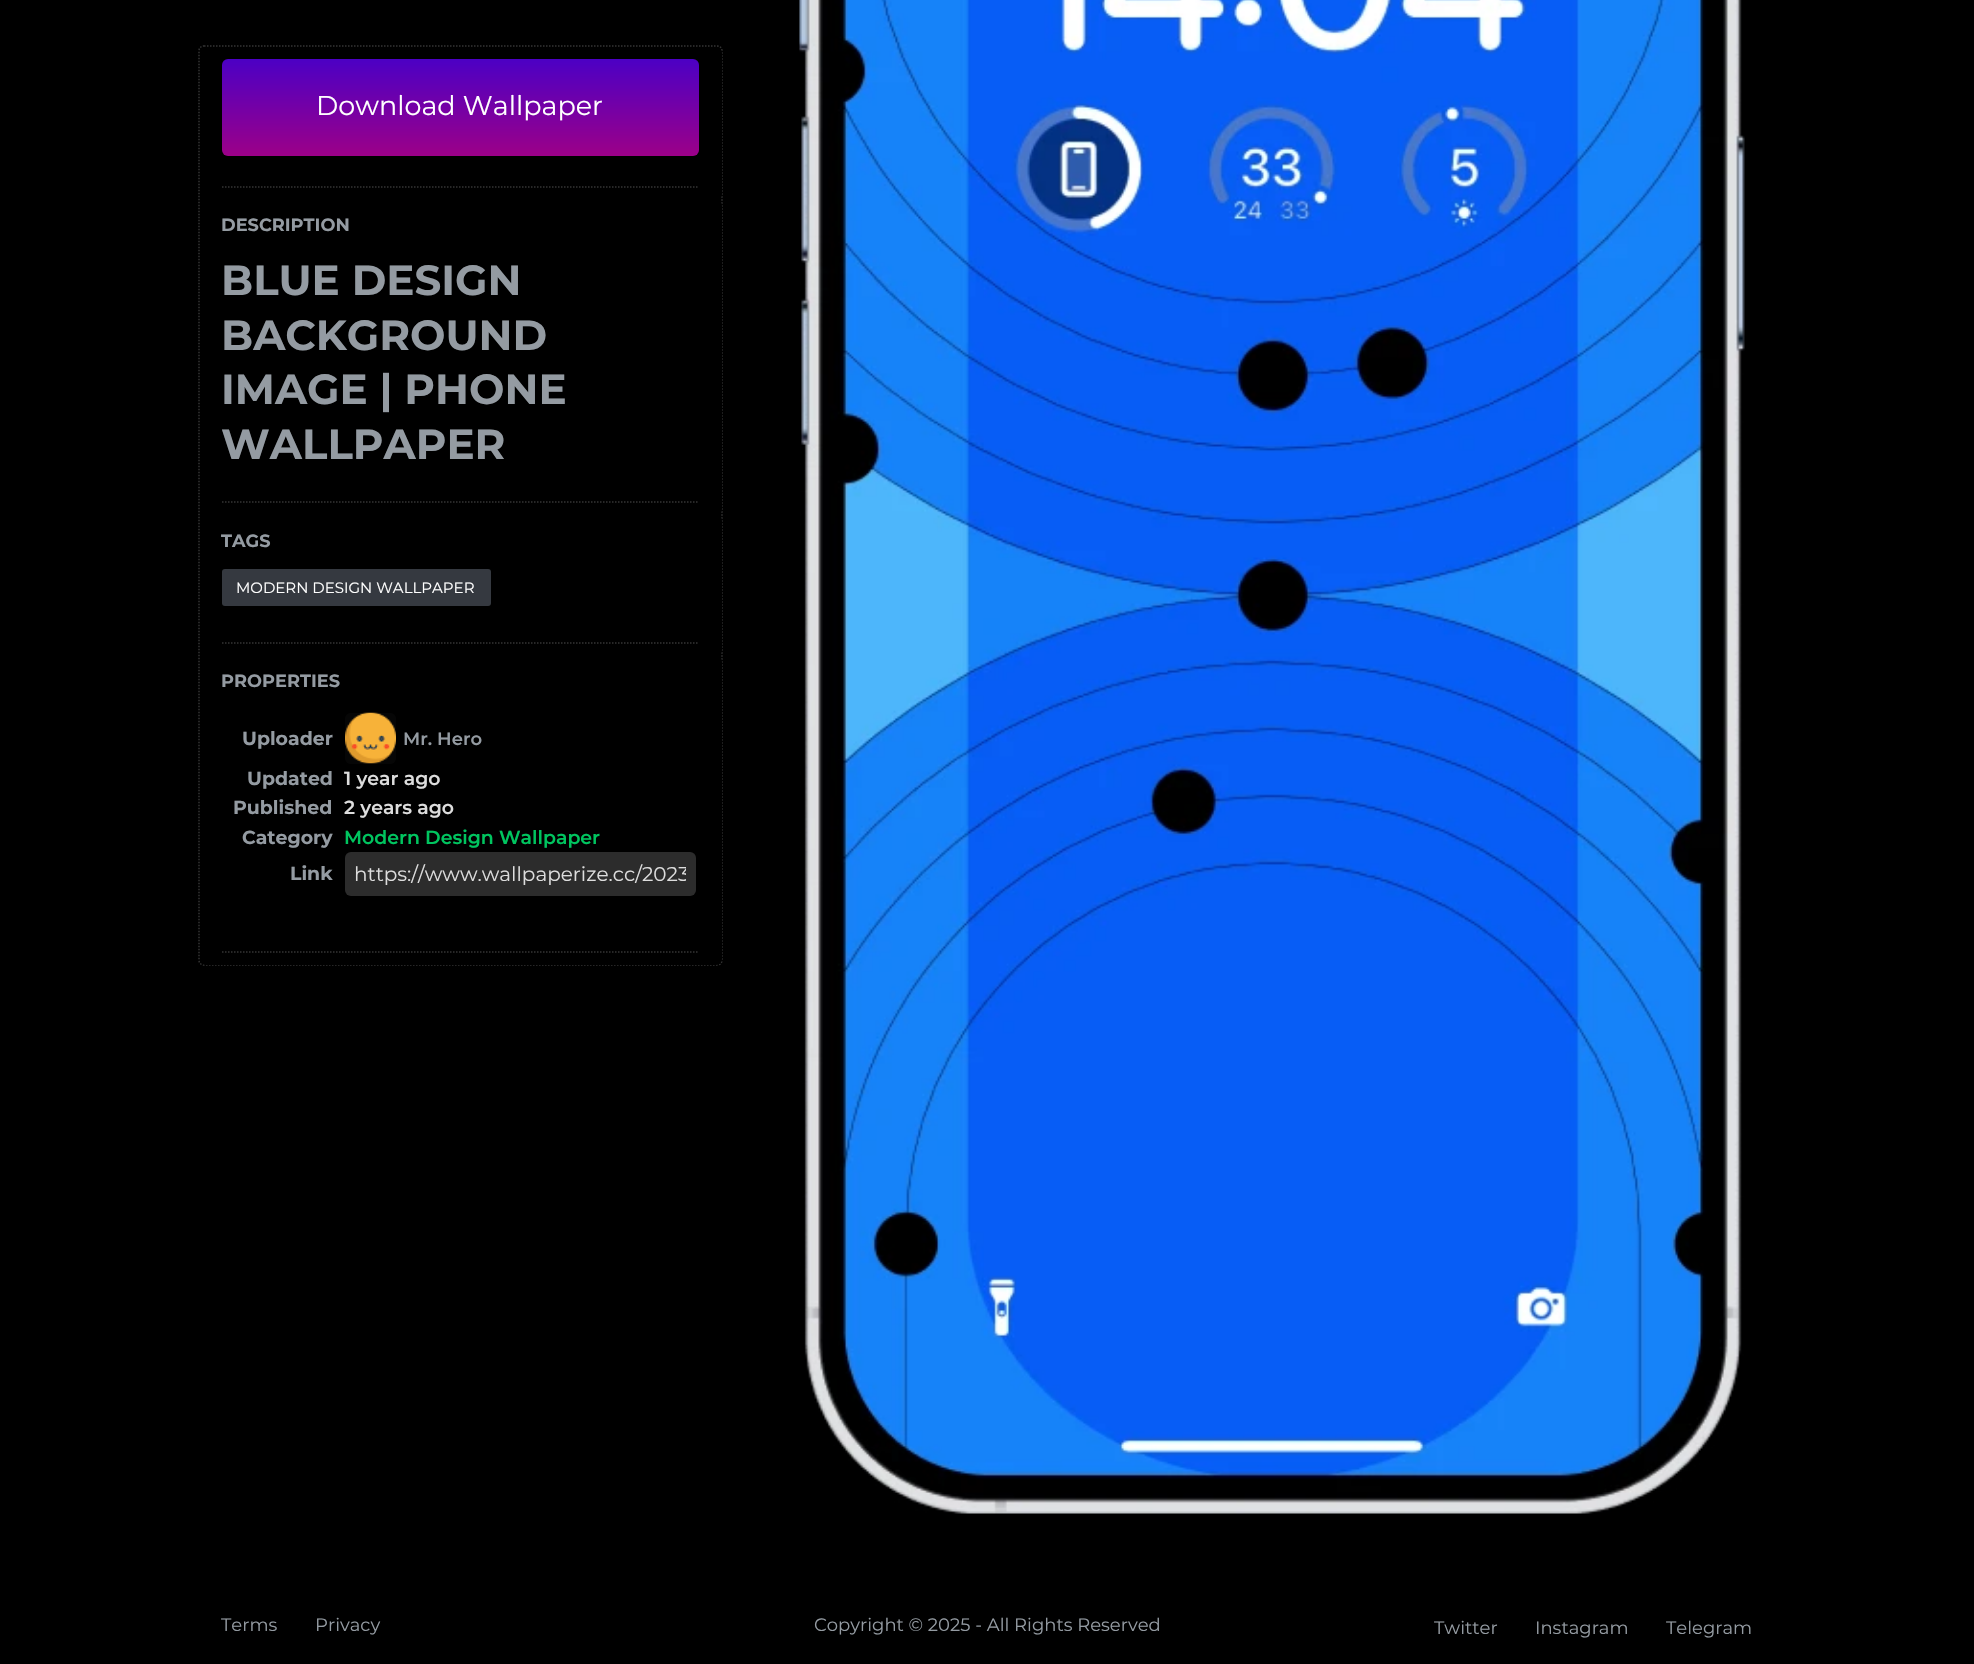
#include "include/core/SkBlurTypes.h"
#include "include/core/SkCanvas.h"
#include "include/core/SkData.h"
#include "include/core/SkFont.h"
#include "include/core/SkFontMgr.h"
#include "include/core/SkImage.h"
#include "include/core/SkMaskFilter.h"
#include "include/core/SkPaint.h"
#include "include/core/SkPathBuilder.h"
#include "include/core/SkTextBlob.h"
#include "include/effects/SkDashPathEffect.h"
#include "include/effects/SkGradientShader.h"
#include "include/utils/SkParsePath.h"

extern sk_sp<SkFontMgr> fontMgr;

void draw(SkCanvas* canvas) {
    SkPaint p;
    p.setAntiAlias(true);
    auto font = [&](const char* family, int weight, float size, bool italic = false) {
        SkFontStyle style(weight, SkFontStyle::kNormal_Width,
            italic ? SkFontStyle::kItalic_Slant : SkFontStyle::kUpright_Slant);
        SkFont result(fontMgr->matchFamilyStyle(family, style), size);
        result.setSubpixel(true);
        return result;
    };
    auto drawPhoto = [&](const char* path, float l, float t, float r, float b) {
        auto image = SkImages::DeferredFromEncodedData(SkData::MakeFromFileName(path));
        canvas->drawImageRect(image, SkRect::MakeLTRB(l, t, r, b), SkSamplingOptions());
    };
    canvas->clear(0xFF000000);
    p.setStyle(SkPaint::kStroke_Style);
    p.setStrokeWidth(1.5f);
    p.setColor(0xFF333333);
    p.setPathEffect(SkDashPathEffect::Make({{1.5f, 1.5f}}, 0));
    canvas->drawPath(SkPathBuilder().moveTo(204, 46).lineTo(717, 46).cubicTo(720, 46, 722, 48, 722, 51).lineTo(722, 960).cubicTo(722, 963, 720, 965, 717, 965).lineTo(204, 965).cubicTo(201, 965, 199, 963, 199, 960).lineTo(199, 51).cubicTo(199, 48, 201, 46, 204, 46).close().detach(), p);
    p.setPathEffect(nullptr);
    p.setStyle(SkPaint::kFill_Style);
    p.setColor(0xFF000000);
    canvas->drawRoundRect(SkRect::MakeLTRB(200, 47, 722, 200), 6, 6, p);
    {
        const SkColor colors[] = {0xFF4B00C5, 0xFFC50069};
        const float stops[] = {0, 1};
        const SkPoint ends[] = {{461, 58}, {461, 205}};
        p.setShader(SkGradientShader::MakeLinear(ends, colors, stops, 2, SkTileMode::kClamp));
        p.setAlpha(255);
    }
    canvas->drawRoundRect(SkRect::MakeLTRB(222, 59, 699, 156), 6, 6, p);
    auto font1 = font("Montserrat", 100, 27);
    p.setShader(nullptr);
    p.setColor(0xFFFFFFFF);
    canvas->drawString("Download Wallpaper", 316, 115, font1, p);
    p.setStyle(SkPaint::kStroke_Style);
    p.setColor(0xFF333333);
    p.setPathEffect(SkDashPathEffect::Make({{1.5f, 1.5f}}, 0));
    canvas->drawPath(SkPathBuilder().moveTo(222, 187).lineTo(699, 187).detach(), p);
    p.setPathEffect(nullptr);
    p.setStyle(SkPaint::kFill_Style);
    p.setColor(0xFF000000);
    canvas->drawRoundRect(SkRect::MakeLTRB(200, 200, 722, 515), 6, 6, p);
    auto font2 = font("Montserrat", 700, 17.75f);
    p.setColor(0xFF949BA2);
    canvas->drawString("DESCRIPTION", 221, 231, font2, p);
    auto font3 = font("Montserrat", 700, 42);
    {
        const struct { const char* s; float x, y; } items[] = {
            {"BLUE DESIGN", 221, 295},
            {"BACKGROUND", 221, 350},
            {"IMAGE | PHONE", 221, 404},
            {"WALLPAPER", 221, 459},
        };
        for (auto [s, x, y] : items) {
            canvas->drawString(s, x, y, font3, p);
        }
    }
    p.setStyle(SkPaint::kStroke_Style);
    p.setColor(0xFF333333);
    p.setPathEffect(SkDashPathEffect::Make({{1.5f, 1.5f}}, 0));
    canvas->drawPath(SkPathBuilder().moveTo(222, 502).lineTo(699, 502).detach(), p);
    p.setPathEffect(nullptr);
    p.setStyle(SkPaint::kFill_Style);
    p.setColor(0xFF000000);
    canvas->drawRoundRect(SkRect::MakeLTRB(200, 515, 722, 656), 6, 6, p);
    p.setColor(0xFF949BA2);
    canvas->drawString("TAGS", 221, 547, font2, p);
    p.setColor(0xFF353940);
    canvas->drawRoundRect(SkRect::MakeLTRB(222, 569, 491, 606), 3, 3, p);
    auto font4 = font("Montserrat", 100, 15);
    p.setColor(0xFFFFFFFF);
    canvas->drawString("MODERN DESIGN WALLPAPER", 236, 593, font4, p);
    p.setStyle(SkPaint::kStroke_Style);
    p.setColor(0xFF333333);
    p.setPathEffect(SkDashPathEffect::Make({{1.5f, 1.5f}}, 0));
    canvas->drawPath(SkPathBuilder().moveTo(222, 643).lineTo(699, 643).detach(), p);
    p.setPathEffect(nullptr);
    p.setStyle(SkPaint::kFill_Style);
    p.setColor(0xFF000000);
    canvas->drawRoundRect(SkRect::MakeLTRB(200, 656, 722, 965), 6, 6, p);
    p.setColor(0xFF949BA2);
    canvas->drawString("PROPERTIES", 221, 687, font2, p);
    auto font5 = font("Montserrat", 700, 18.9f);
    canvas->drawString("Uploader", 242, 745, font5, p);
    p.setColor(0xFF060606);
    canvas->drawRoundRect(SkRect::MakeLTRB(345, 713, 396, 764), 6, 6, p);
    drawPhoto("media/1.png", 345, 712, 396, 764);
    auto font6 = font("Montserrat", 600, 18);
    p.setColor(0xFF949BA2);
    canvas->drawString("Mr. Hero", 403, 745, font6, p);
    canvas->drawString("Updated", 247, 785, font5, p);
    auto font7 = font("Montserrat", 600, 18.9f);
    p.setColor(0xFFDDDDDD);
    canvas->drawString("1 year ago", 344, 785, font7, p);
    p.setColor(0xFF949BA2);
    canvas->drawString("Published", 233, 814, font5, p);
    p.setColor(0xFFDDDDDD);
    canvas->drawString("2 years ago", 344, 814, font7, p);
    p.setColor(0xFF949BA2);
    canvas->drawString("Category", 242, 844, font5, p);
    p.setColor(0xFF00C55F);
    canvas->drawString("Modern Design Wallpaper", 344, 844, font7, p);
    p.setColor(0xFF949BA2);
    canvas->drawString("Link", 290, 880, font5, p);
    p.setColor(0xFF2C2C2C);
    canvas->drawRoundRect(SkRect::MakeLTRB(345, 852, 696, 896), 6, 6, p);
    canvas->save();
    canvas->clipRect(SkRect::MakeLTRB(354, 863, 686, 887));
    auto font8 = font("Montserrat", 100, 20);
    p.setColor(0xFFDDDDDD);
    canvas->drawString("https://www.wallpaperize.cc/2023", 354, 881, font8, p);
    canvas->restore();
    p.setStyle(SkPaint::kStroke_Style);
    p.setColor(0xFF333333);
    p.setPathEffect(SkDashPathEffect::Make({{1.5f, 1.5f}}, 0));
    canvas->drawPath(SkPathBuilder().moveTo(222, 952).lineTo(699, 952).detach(), p);
    p.setPathEffect(nullptr);
    drawPhoto("media/2.png", 799, 0, 1745, 1514);
    auto font9 = font("Montserrat", 100, 18);
    p.setStyle(SkPaint::kFill_Style);
    p.setColor(0xFF949BA2);
    {
        const struct { const char* s; float x, y; } items[] = {
            {"Terms", 221, 1631},
            {"Privacy", 315, 1631},
            {"Copyright © 2025 - All Rights Reserved", 814, 1631},
            {"Twitter", 1434, 1634},
            {"Instagram", 1535, 1634},
            {"Telegram", 1666, 1634},
        };
        for (auto [s, x, y] : items) {
            canvas->drawString(s, x, y, font9, p);
        }
    }
}
